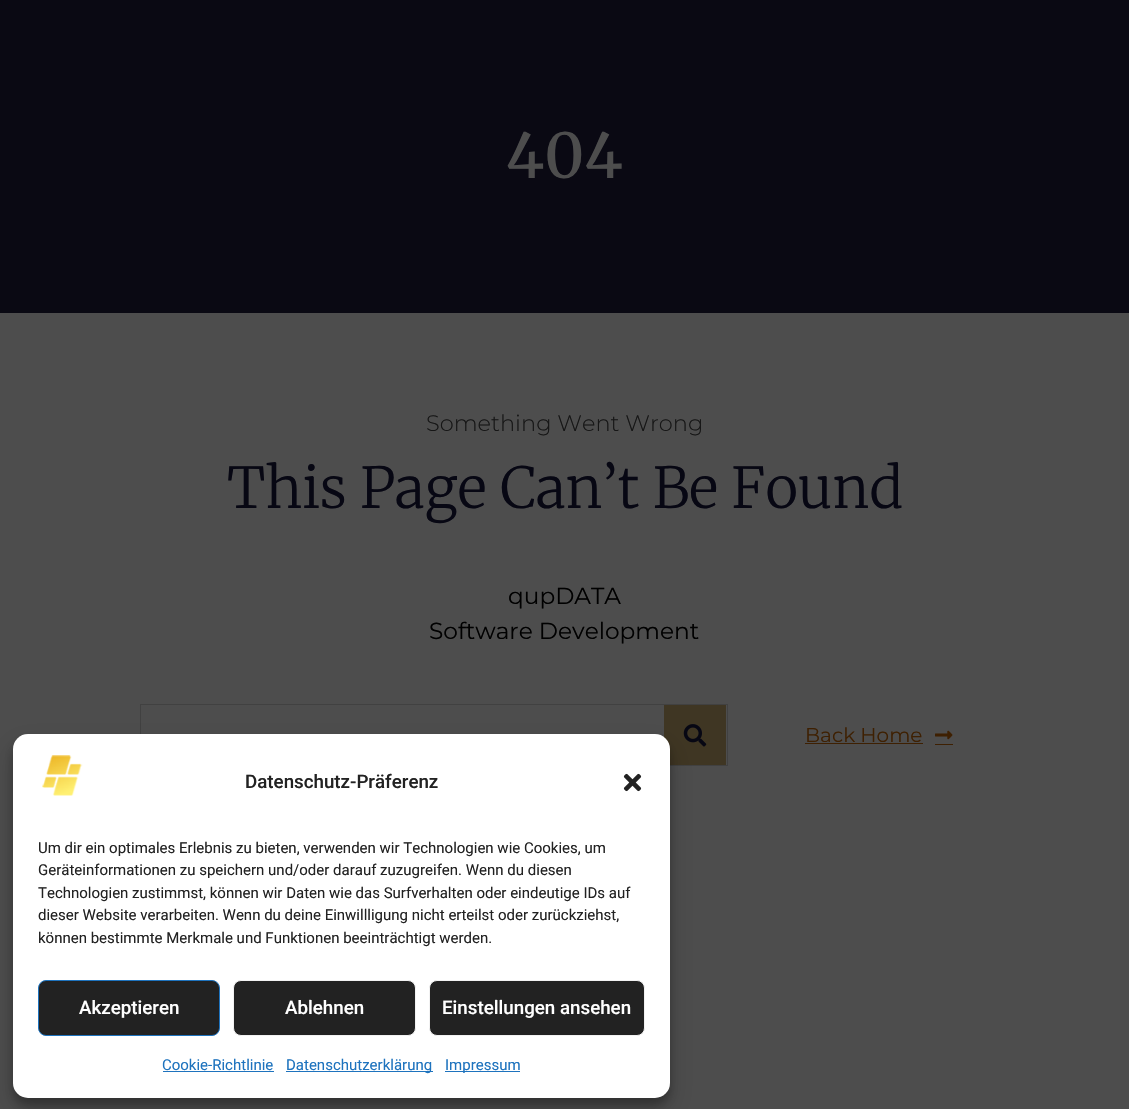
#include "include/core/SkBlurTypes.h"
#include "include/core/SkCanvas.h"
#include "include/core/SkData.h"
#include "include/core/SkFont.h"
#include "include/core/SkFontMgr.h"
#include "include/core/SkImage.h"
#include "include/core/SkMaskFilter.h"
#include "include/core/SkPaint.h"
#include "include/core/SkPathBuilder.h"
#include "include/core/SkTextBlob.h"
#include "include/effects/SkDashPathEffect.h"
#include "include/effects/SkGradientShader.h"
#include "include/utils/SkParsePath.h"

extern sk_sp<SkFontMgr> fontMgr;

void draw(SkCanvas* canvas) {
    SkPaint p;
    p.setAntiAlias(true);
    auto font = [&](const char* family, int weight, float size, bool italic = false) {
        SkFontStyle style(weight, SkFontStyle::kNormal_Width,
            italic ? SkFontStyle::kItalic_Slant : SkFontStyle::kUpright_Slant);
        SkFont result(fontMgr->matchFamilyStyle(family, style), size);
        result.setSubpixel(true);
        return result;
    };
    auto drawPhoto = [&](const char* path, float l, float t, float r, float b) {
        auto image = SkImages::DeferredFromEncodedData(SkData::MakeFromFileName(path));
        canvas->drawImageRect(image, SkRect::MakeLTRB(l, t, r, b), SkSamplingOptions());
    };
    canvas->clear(0xFF4D4D4D);
    p.setColor(0xFF0A0913);
    canvas->drawRect(SkRect::MakeLTRB(0, 0, 1129, 313), p);
    auto font1 = font("Merriweather", 500, 62);
    p.setColor(0xFF4D4D4D);
    canvas->drawString("404", 506, 178, font1, p);
    auto font2 = font("Montserrat", 300, 22.5f);
    p.setColor(0xFF161616);
    canvas->drawString("Something Went Wrong", 426, 431, font2, p);
    auto font3 = font("Merriweather", 300, 56.25f);
    p.setColor(0xFF070713);
    canvas->drawString("This Page Can’t Be Found", 227, 508, font3, p);
    auto font4 = font("Montserrat", 400, 23.25f);
    p.setColor(0xFF000000);
    canvas->drawString("qupDATA", 508, 604, font4, p);
    canvas->drawString("Software Development", 429, 639, font4, p);
    p.setStyle(SkPaint::kStroke_Style);
    p.setStrokeWidth(1);
    p.setColor(0xFF414141);
    canvas->drawRect(SkRect::MakeLTRB(140.5f, 704.5f, 727.5f, 765.5f), p);
    p.setStyle(SkPaint::kFill_Style);
    p.setColor(0xFF3F3623);
    canvas->drawRect(SkRect::MakeLTRB(664, 705, 726, 765), p);
    drawPhoto("media/1.png", 683, 724, 707, 747);
    auto font5 = font("Montserrat", 400, 20);
    p.setColor(0xFF3E2002);
    canvas->drawString("Back Home", 805, 742, font5, p);
    canvas->drawRect(SkRect::MakeLTRB(805, 743, 923, 744), p);
    drawPhoto("media/2.png", 935, 730, 953, 740);
    canvas->drawRect(SkRect::MakeLTRB(935, 744, 953, 745), p);
    p.setColor(0x3B000000);
    p.setMaskFilter(SkMaskFilter::MakeBlur(kNormal_SkBlurStyle, 4));
    canvas->drawRoundRect(SkRect::MakeLTRB(13, 741, 670, 1105), 15, 15, p);
    p.setMaskFilter(nullptr);
    p.setColor(0x30000000);
    p.setMaskFilter(SkMaskFilter::MakeBlur(kNormal_SkBlurStyle, 12.5f));
    canvas->drawRoundRect(SkRect::MakeLTRB(13, 746, 670, 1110), 15, 15, p);
    p.setMaskFilter(nullptr);
    p.setColor(0xFFFFFFFF);
    canvas->drawRoundRect(SkRect::MakeLTRB(13, 734, 670, 1098), 15, 15, p);
    drawPhoto("media/3.png", 42, 755, 83, 796);
    auto font6 = font("Roboto", 500, 18.75f);
    p.setColor(0xFF222222);
    canvas->drawString("Datenschutz-Präferenz", 245, 788, font6, p);
    drawPhoto("media/4.png", 623, 773, 642, 792);
    auto font7 = font("Roboto", 400, 15);
    {
        const struct { const char* s; float x, y; } items[] = {
            {"Um dir ein optimales Erlebnis zu bieten, verwenden wir Technologien wie Cookies, um", 38, 853},
            {"Geräteinformationen zu speichern und/oder darauf zuzugreifen. Wenn du diesen", 38, 875},
            {"Technologien zustimmst, können wir Daten wie das Surfverhalten oder eindeutige IDs auf", 38, 898},
            {"dieser Website verarbeiten. Wenn du deine Einwillligung nicht erteilst oder zurückziehst,", 38, 920},
            {"können bestimmte Merkmale und Funktionen beeinträchtigt werden.", 38, 943},
        };
        for (auto [s, x, y] : items) {
            canvas->drawString(s, x, y, font7, p);
        }
    }
    canvas->drawRoundRect(SkRect::MakeLTRB(38.5f, 980.5f, 219.5f, 1035.5f), 7.5f, 7.5f, p);
    p.setStyle(SkPaint::kStroke_Style);
    p.setColor(0xFF1E73BE);
    canvas->drawRoundRect(SkRect::MakeLTRB(38.5f, 980.5f, 219.5f, 1035.5f), 7.5f, 7.5f, p);
    p.setStyle(SkPaint::kFill_Style);
    p.setColor(0xFFFFFFFF);
    canvas->drawString("Akzeptieren", 79, 1014, font6, p);
    p.setColor(0xFF222222);
    canvas->drawRoundRect(SkRect::MakeLTRB(233.5f, 980.5f, 415.5f, 1035.5f), 7.5f, 7.5f, p);
    p.setStyle(SkPaint::kStroke_Style);
    p.setColor(0xFFF2F2F2);
    canvas->drawRoundRect(SkRect::MakeLTRB(233.5f, 980.5f, 415.5f, 1035.5f), 7.5f, 7.5f, p);
    p.setStyle(SkPaint::kFill_Style);
    p.setColor(0xFFFFFFFF);
    canvas->drawString("Ablehnen", 285, 1014, font6, p);
    p.setColor(0xFF222222);
    canvas->drawRoundRect(SkRect::MakeLTRB(429.5f, 980.5f, 644.5f, 1035.5f), 7.5f, 7.5f, p);
    p.setStyle(SkPaint::kStroke_Style);
    p.setColor(0xFFF2F2F2);
    canvas->drawRoundRect(SkRect::MakeLTRB(429.5f, 980.5f, 644.5f, 1035.5f), 7.5f, 7.5f, p);
    p.setStyle(SkPaint::kFill_Style);
    p.setColor(0xFFFFFFFF);
    canvas->drawString("Einstellungen ansehen", 442, 1014, font6, p);
    p.setColor(0xFF1E73BE);
    canvas->drawString("Cookie-Richtlinie", 162, 1070, font7, p);
    canvas->drawRect(SkRect::MakeLTRB(163, 1071, 274, 1072), p);
    canvas->drawRect(SkRect::MakeLTRB(286, 1071, 433, 1072), p);
    canvas->drawString("Datenschutzerklärung", 286, 1070, font7, p);
    canvas->drawRect(SkRect::MakeLTRB(445, 1071, 520, 1072), p);
    canvas->drawString("Impressum", 445, 1070, font7, p);
}
